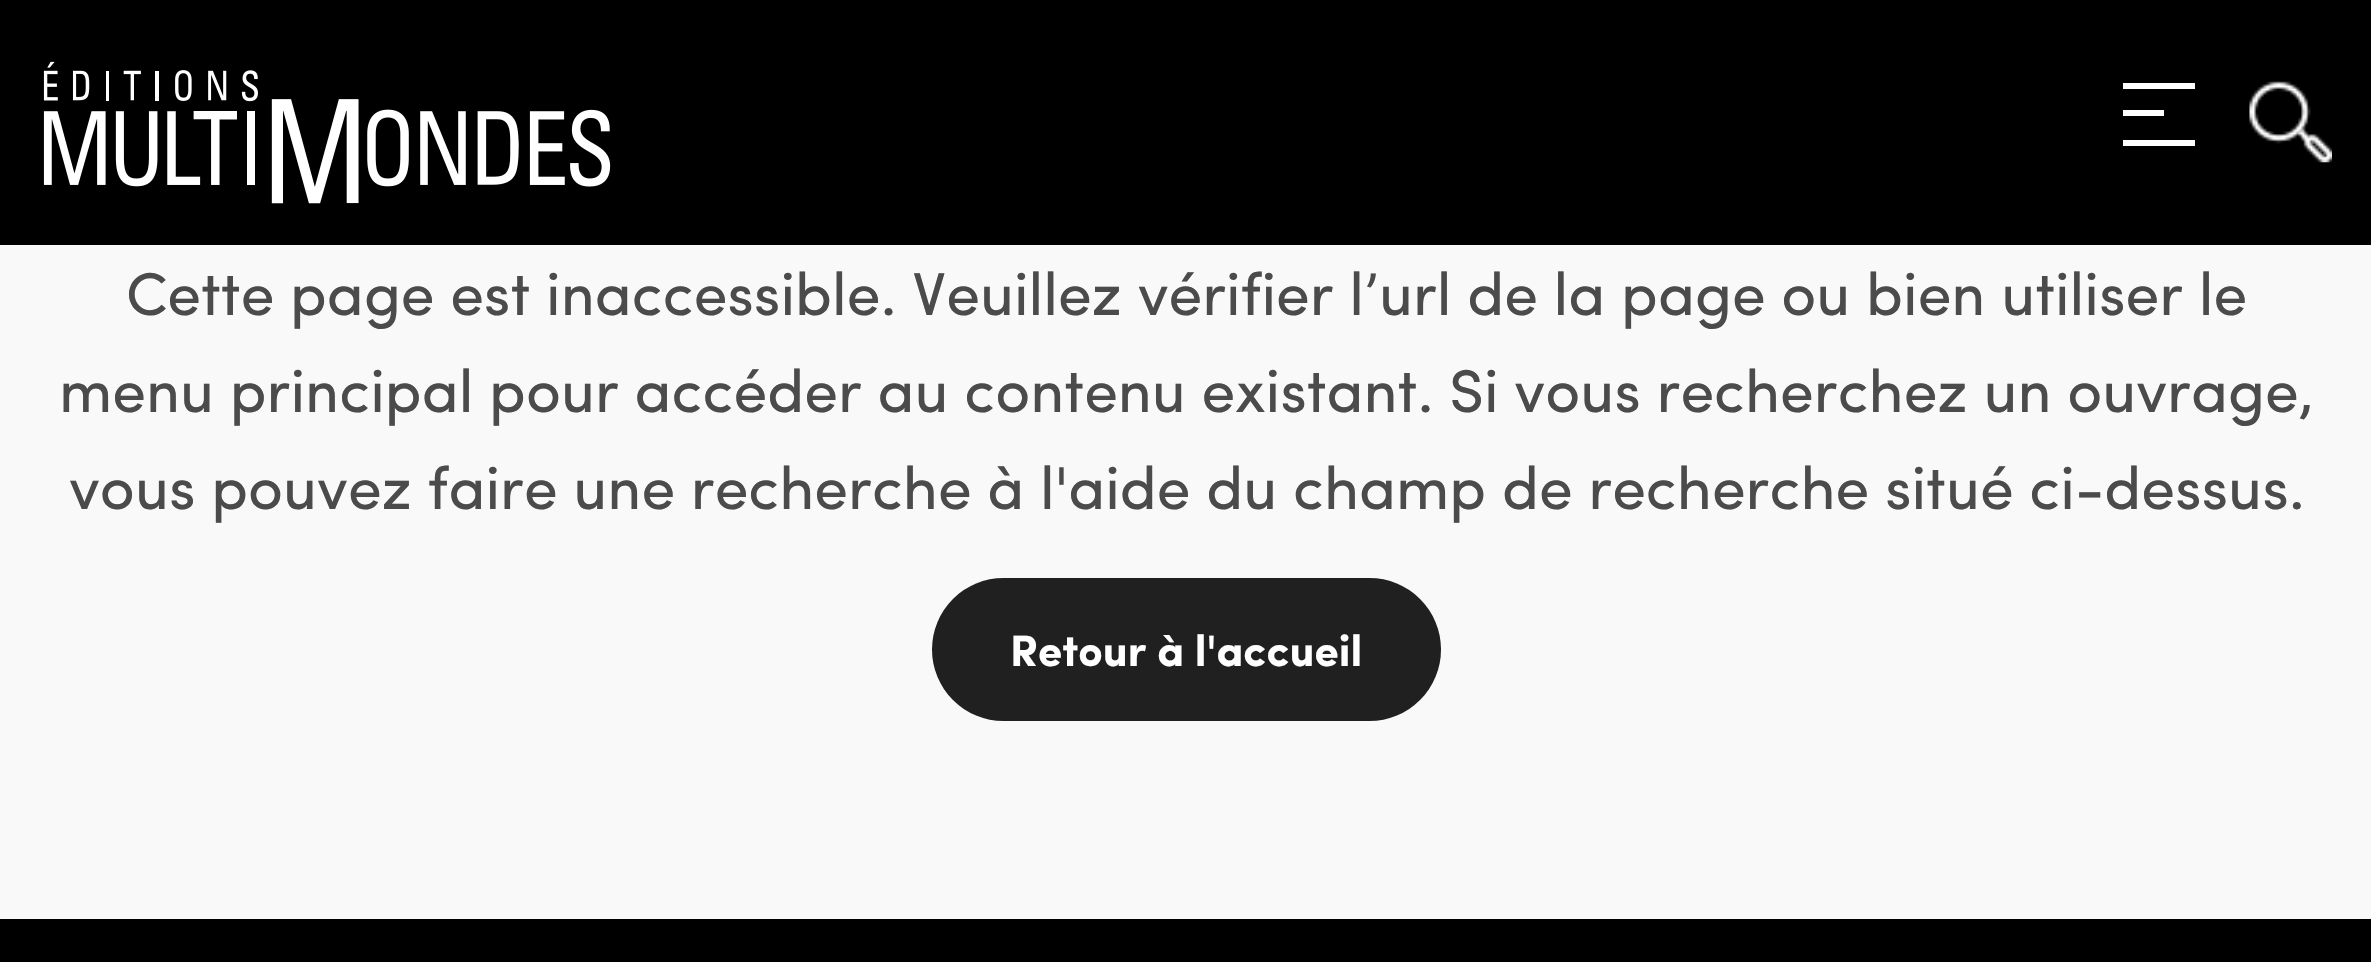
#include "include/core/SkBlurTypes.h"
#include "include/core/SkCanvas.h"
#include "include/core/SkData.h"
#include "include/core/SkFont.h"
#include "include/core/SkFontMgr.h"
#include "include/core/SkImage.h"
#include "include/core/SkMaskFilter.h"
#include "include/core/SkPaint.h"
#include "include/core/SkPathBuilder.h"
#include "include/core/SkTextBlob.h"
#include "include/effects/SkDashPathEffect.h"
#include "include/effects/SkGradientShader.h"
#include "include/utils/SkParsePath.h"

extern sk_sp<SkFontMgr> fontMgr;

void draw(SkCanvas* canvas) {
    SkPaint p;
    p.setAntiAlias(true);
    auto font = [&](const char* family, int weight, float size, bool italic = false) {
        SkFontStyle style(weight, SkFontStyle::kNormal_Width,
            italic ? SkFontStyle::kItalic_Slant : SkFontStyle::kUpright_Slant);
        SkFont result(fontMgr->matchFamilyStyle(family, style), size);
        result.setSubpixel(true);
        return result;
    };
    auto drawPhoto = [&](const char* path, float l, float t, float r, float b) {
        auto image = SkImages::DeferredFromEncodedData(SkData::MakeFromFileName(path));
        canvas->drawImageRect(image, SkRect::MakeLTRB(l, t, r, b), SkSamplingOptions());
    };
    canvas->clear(0xFFF9F9F9);
    p.setColor(0xFF000000);
    canvas->drawRect(SkRect::MakeLTRB(0, 0, 2371, 245), p);
    drawPhoto("media/1.png", 43, 61, 611, 204);
    {
        const struct { float l, t, r, b; SkColor color; } items[] = {
            {2123, 83, 2195, 89, 0xFFFFFFFF},
            {2123, 140, 2195, 146, 0xFFFFFFFF},
            {2123, 110, 2164, 116, 0xFFFFFFFF},
        };
        for (auto [l, t, r, b, color] : items) {
            p.setColor(color);
            canvas->drawRect(SkRect::MakeLTRB(l, t, r, b), p);
        }
    }
    drawPhoto("media/2.png", 2249, 81, 2332, 163);
    auto font1 = font("Sofia", 400, 60.5f);
    p.setColor(0xFF4B4B4B);
    {
        const struct { const char* s; float x, y; } items[] = {
            {"Cette page est inaccessible. Veuillez vérifier l’url de la page ou bien utiliser le", 126, 315},
            {"menu principal pour accéder au contenu existant. Si vous recherchez un ouvrage,", 59, 412},
            {"vous pouvez faire une recherche à l'aide du champ de recherche situé ci-dessus.", 69, 509},
        };
        for (auto [s, x, y] : items) {
            canvas->drawString(s, x, y, font1, p);
        }
    }
    p.setColor(0xFF202020);
    canvas->drawRoundRect(SkRect::MakeLTRB(932, 578, 1441, 721), 71.5f, 71.5f, p);
    auto font2 = font("Sofia", 700, 44);
    p.setColor(0xFFFFFFFF);
    canvas->drawString("Retour à l'accueil", 1010, 666, font2, p);
    p.setColor(0xFF000000);
    canvas->drawRect(SkRect::MakeLTRB(0, 919, 2371, 962), p);
}
